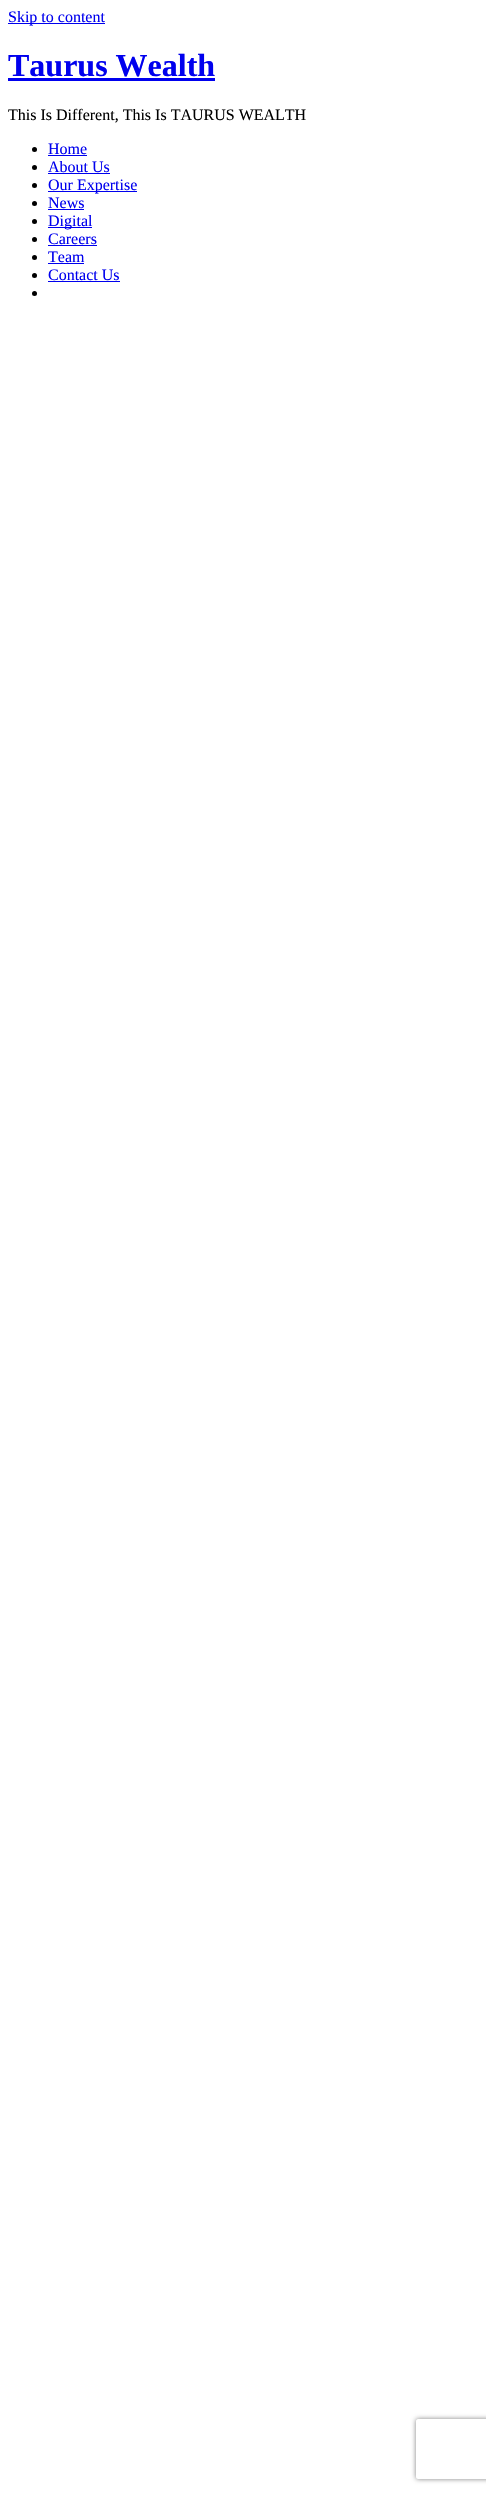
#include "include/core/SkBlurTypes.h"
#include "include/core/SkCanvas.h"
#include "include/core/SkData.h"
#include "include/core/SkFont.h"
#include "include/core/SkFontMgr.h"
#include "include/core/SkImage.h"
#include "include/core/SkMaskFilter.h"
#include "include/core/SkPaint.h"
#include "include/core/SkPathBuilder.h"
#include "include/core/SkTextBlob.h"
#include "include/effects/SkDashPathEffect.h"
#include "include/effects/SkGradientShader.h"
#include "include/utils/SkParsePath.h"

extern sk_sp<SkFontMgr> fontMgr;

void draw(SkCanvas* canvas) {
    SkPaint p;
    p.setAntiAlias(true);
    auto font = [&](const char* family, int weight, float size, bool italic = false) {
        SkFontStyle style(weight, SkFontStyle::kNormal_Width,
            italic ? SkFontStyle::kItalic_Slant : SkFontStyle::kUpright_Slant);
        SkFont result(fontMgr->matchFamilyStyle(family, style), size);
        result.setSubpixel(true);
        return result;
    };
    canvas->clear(0xFFFFFFFF);
    p.setColor(0xFF0000EE);
    canvas->drawRect(SkRect::MakeLTRB(8, 23, 105, 24), p);
    auto font1 = font("Liberation Serif", 400, 16);
    canvas->drawString("Skip to content", 8, 22, font1, p);
    auto font2 = font("Liberation Serif", 700, 32);
    canvas->drawString("Taurus Wealth", 8, 76, font2, p);
    canvas->drawRect(SkRect::MakeLTRB(8, 78, 215, 81), p);
    p.setColor(0xFF000000);
    canvas->drawString("This Is Different, This Is TAURUS WEALTH", 8, 120, font1, p);
    canvas->drawCircle(34.5f, 149.5f, 2.5f, p);
    p.setColor(0xFF0000EE);
    canvas->drawString("Home", 48, 154, font1, p);
    canvas->drawRect(SkRect::MakeLTRB(48, 155, 87, 156), p);
    p.setColor(0xFF000000);
    canvas->drawCircle(34.5f, 167.5f, 2.5f, p);
    p.setColor(0xFF0000EE);
    canvas->drawString("About Us", 48, 172, font1, p);
    canvas->drawRect(SkRect::MakeLTRB(48, 173, 110, 174), p);
    p.setColor(0xFF000000);
    canvas->drawCircle(34.5f, 185.5f, 2.5f, p);
    p.setColor(0xFF0000EE);
    canvas->drawRect(SkRect::MakeLTRB(48, 191, 137, 192), p);
    canvas->drawString("Our Expertise", 48, 190, font1, p);
    p.setColor(0xFF000000);
    canvas->drawCircle(34.5f, 203.5f, 2.5f, p);
    p.setColor(0xFF0000EE);
    canvas->drawString("News", 48, 208, font1, p);
    canvas->drawRect(SkRect::MakeLTRB(48, 209, 84, 210), p);
    p.setColor(0xFF000000);
    canvas->drawCircle(34.5f, 221.5f, 2.5f, p);
    p.setColor(0xFF0000EE);
    canvas->drawRect(SkRect::MakeLTRB(48, 227, 92, 228), p);
    canvas->drawString("Digital", 48, 226, font1, p);
    p.setColor(0xFF000000);
    canvas->drawCircle(34.5f, 239.5f, 2.5f, p);
    p.setColor(0xFF0000EE);
    canvas->drawString("Careers", 48, 244, font1, p);
    canvas->drawRect(SkRect::MakeLTRB(48, 245, 97, 246), p);
    p.setColor(0xFF000000);
    canvas->drawCircle(34.5f, 257.5f, 2.5f, p);
    p.setColor(0xFF0000EE);
    canvas->drawString("Team", 48, 262, font1, p);
    canvas->drawRect(SkRect::MakeLTRB(48, 263, 84, 264), p);
    p.setColor(0xFF000000);
    canvas->drawCircle(34.5f, 275.5f, 2.5f, p);
    p.setColor(0xFF0000EE);
    canvas->drawString("Contact Us", 48, 280, font1, p);
    canvas->drawRect(SkRect::MakeLTRB(48, 281, 120, 282), p);
    p.setColor(0xFF000000);
    canvas->drawCircle(34.5f, 293.5f, 2.5f, p);
    canvas->save();
    canvas->clipPath(SkPathBuilder(SkPathFillType::kEvenOdd).moveTo(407, 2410).lineTo(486, 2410).lineTo(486, 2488).lineTo(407, 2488).close().moveTo(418, 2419).lineTo(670, 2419).cubicTo(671, 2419, 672, 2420, 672, 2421).lineTo(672, 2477).cubicTo(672, 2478, 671, 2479, 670, 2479).lineTo(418, 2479).cubicTo(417, 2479, 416, 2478, 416, 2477).lineTo(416, 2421).cubicTo(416, 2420, 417, 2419, 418, 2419).close().detach(), true);
    p.setColor(0xFF808080);
    p.setMaskFilter(SkMaskFilter::MakeBlur(kNormal_SkBlurStyle, 2.5f));
    canvas->drawRoundRect(SkRect::MakeLTRB(416, 2419, 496, 2479), 2, 2, p);
    p.setMaskFilter(nullptr);
    canvas->restore();
}
